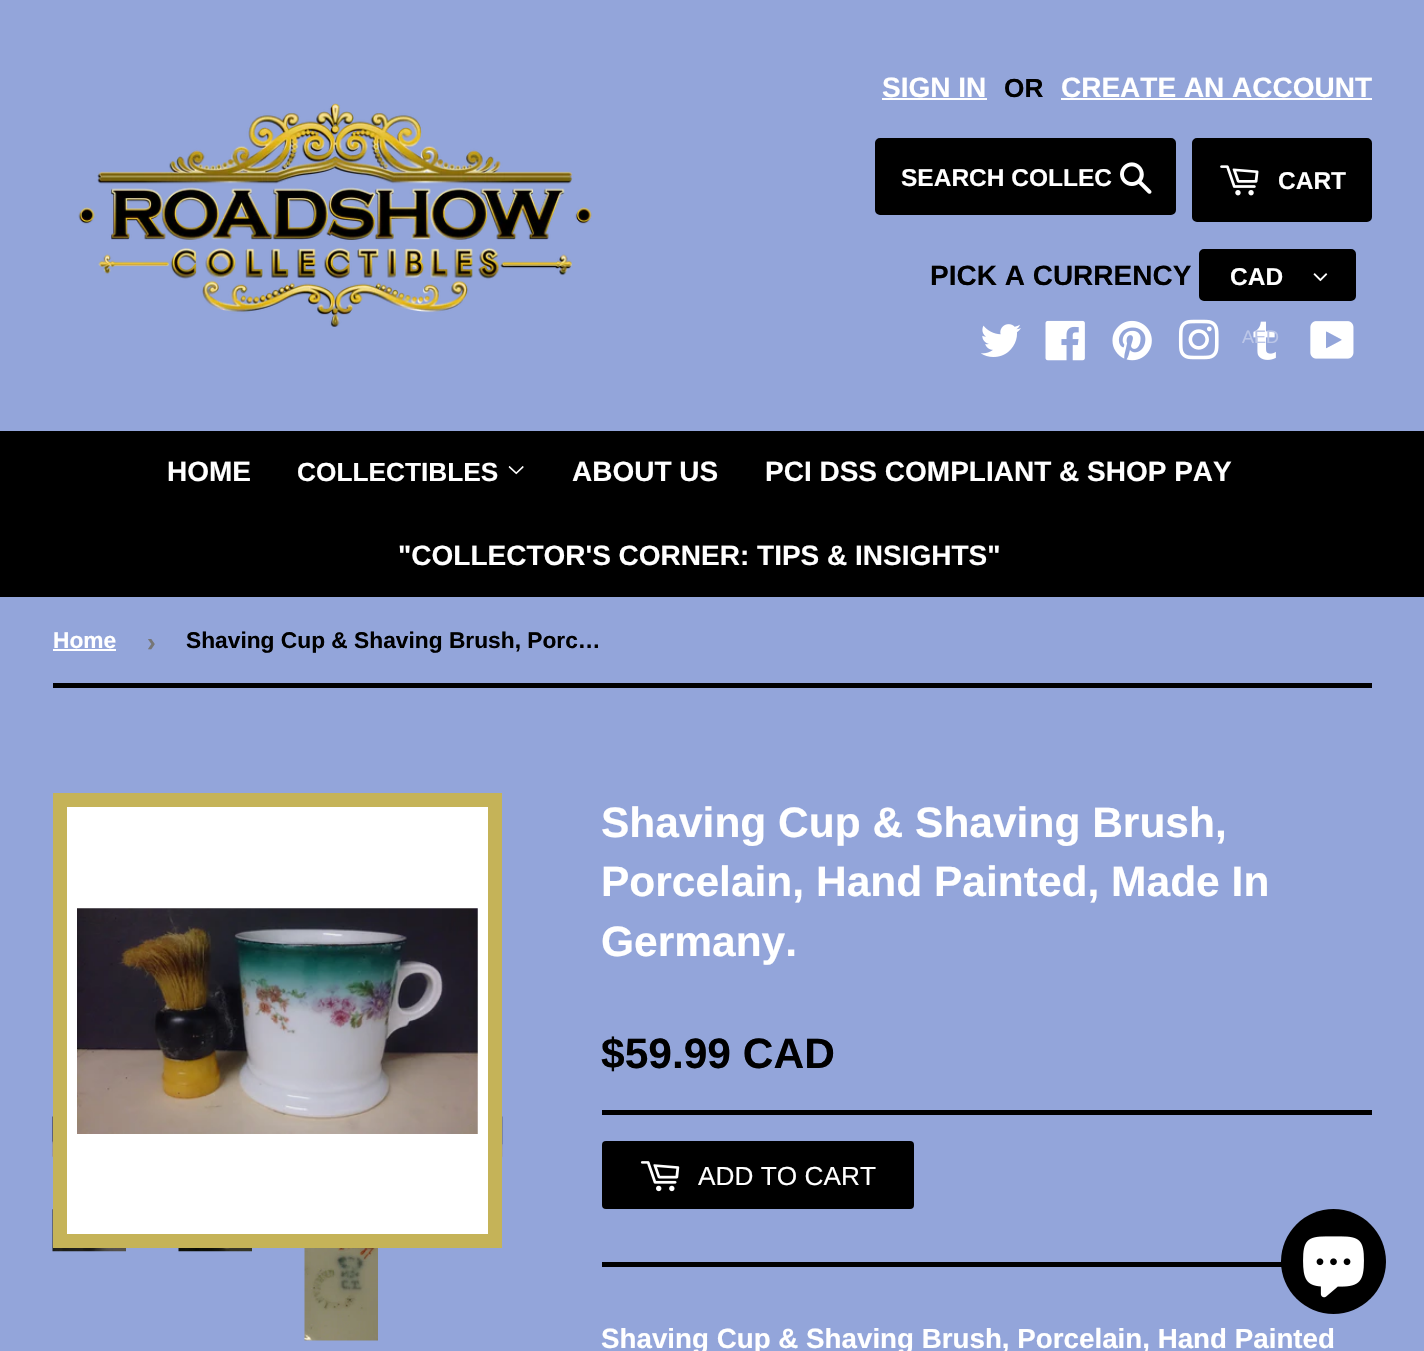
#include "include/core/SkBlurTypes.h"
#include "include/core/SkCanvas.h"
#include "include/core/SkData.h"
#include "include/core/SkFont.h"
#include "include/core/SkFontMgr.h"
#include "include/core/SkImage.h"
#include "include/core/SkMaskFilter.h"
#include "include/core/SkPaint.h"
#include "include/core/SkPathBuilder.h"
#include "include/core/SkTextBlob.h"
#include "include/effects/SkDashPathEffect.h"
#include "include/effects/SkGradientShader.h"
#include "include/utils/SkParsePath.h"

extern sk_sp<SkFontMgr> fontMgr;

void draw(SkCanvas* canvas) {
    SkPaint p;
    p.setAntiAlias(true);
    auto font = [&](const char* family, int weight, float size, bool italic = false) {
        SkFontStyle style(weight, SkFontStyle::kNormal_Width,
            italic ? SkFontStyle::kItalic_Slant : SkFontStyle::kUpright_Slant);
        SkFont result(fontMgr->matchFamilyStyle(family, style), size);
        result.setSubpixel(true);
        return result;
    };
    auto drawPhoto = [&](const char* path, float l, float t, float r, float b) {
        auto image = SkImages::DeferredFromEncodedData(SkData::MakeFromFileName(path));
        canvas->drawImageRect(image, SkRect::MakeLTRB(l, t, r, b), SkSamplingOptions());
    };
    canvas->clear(0xFF93A5DA);
    drawPhoto("media/1.png", 78, 103, 592, 327);
    auto font1 = font("Liberation Sans", 700, 28);
    p.setColor(0xFFFFFFFF);
    canvas->drawString("SIGN IN", 882, 97, font1, p);
    canvas->drawRect(SkRect::MakeLTRB(882, 98, 987, 100), p);
    auto font2 = font("Liberation Sans", 700, 26.25f);
    p.setColor(0xFF000000);
    canvas->drawString("OR", 1004, 97, font2, p);
    p.setColor(0xFFFFFFFF);
    canvas->drawString("CREATE AN ACCOUNT", 1061, 97, font1, p);
    canvas->drawRect(SkRect::MakeLTRB(1061, 98, 1372, 100), p);
    p.setColor(0xFF000000);
    canvas->drawRoundRect(SkRect::MakeLTRB(876, 139, 1175, 214), 4, 4, p);
    p.setStyle(SkPaint::kStroke_Style);
    p.setStrokeWidth(2);
    canvas->drawRoundRect(SkRect::MakeLTRB(876, 139, 1175, 214), 4, 4, p);
    auto font3 = font("Liberation Sans", 700, 24.5f);
    p.setStyle(SkPaint::kFill_Style);
    p.setColor(0xFFFFFFFF);
    canvas->drawString("SEARCH COLLEC", 901, 186, font3, p);
    drawPhoto("media/2.png", 1120, 162, 1152, 194);
    p.setColor(0xFF000000);
    canvas->drawRoundRect(SkRect::MakeLTRB(1193, 139, 1371, 221), 4, 4, p);
    p.setStyle(SkPaint::kStroke_Style);
    canvas->drawRoundRect(SkRect::MakeLTRB(1193, 139, 1371, 221), 4, 4, p);
    drawPhoto("media/3.png", 1220, 165, 1259, 196);
    p.setStyle(SkPaint::kFill_Style);
    p.setColor(0xFFFFFFFF);
    canvas->drawString("CART", 1278, 189, font3, p);
    p.setColor(0xFF000000);
    canvas->drawString("PICK A CURRENCY", 930, 285, font1, p);
    canvas->drawRoundRect(SkRect::MakeLTRB(1200, 250, 1355, 300), 4, 4, p);
    p.setStyle(SkPaint::kStroke_Style);
    canvas->drawRoundRect(SkRect::MakeLTRB(1200, 250, 1355, 300), 4, 4, p);
    p.setStyle(SkPaint::kFill_Style);
    p.setColor(0xFFFFFFFF);
    canvas->drawString("CAD", 1230, 285, font3, p);
    drawPhoto("media/9.png", 1253, 321, 1276, 360);
    auto font4 = font("Liberation Sans", 400, 18);
    p.setColor(0xFFBBC6E8);
    canvas->drawString("AED", 1242, 343, font4, p);
    drawPhoto("media/4.png", 1313, 273, 1328, 282);
    drawPhoto("media/5.png", 981, 324, 1021, 357);
    drawPhoto("media/6.png", 1045, 320, 1085, 361);
    drawPhoto("media/7.png", 1112, 320, 1152, 361);
    drawPhoto("media/8.png", 1178, 319, 1219, 360);
    drawPhoto("media/10.png", 1310, 321, 1354, 359);
    p.setColor(0xFF000000);
    canvas->drawRect(SkRect::MakeLTRB(0, 431, 1424, 597), p);
    p.setColor(0xFFFFFFFF);
    canvas->drawString("HOME", 167, 481, font1, p);
    canvas->drawString("COLLECTIBLES", 297, 481, font2, p);
    drawPhoto("media/11.png", 508, 466, 524, 475);
    {
        const struct { const char* s; float x, y; } items[] = {
            {"ABOUT US", 572, 481},
            {"PCI DSS COMPLIANT & SHOP PAY", 765, 481},
            {"\"COLLECTOR'S CORNER: TIPS & INSIGHTS\"", 398, 565},
        };
        for (auto [s, x, y] : items) {
            canvas->drawString(s, x, y, font1, p);
        }
    }
    p.setColor(0xFF000000);
    canvas->drawRect(SkRect::MakeLTRB(53, 683, 1372, 688), p);
    auto font5 = font("Liberation Sans", 700, 22.75f);
    p.setColor(0xFFFFFFFF);
    canvas->drawString("Home", 53, 648, font5, p);
    canvas->drawRect(SkRect::MakeLTRB(53, 649, 116, 651), p);
    p.setColor(0xFF767676);
    canvas->drawString("›", 147, 651, font2, p);
    p.setColor(0xFF000000);
    canvas->drawString("Shaving Cup & Shaving Brush, Porc…", 186, 648, font5, p);
    drawPhoto("media/15.png", 52, 1209, 126, 1252);
    p.setColor(0xFFFFFFFF);
    canvas->drawRect(SkRect::MakeLTRB(60, 800, 495, 1241), p);
    p.setStyle(SkPaint::kStroke_Style);
    p.setStrokeWidth(14);
    p.setColor(0xFFC5B358);
    canvas->drawRect(SkRect::MakeLTRB(60, 800, 495, 1241), p);
    drawPhoto("media/12.png", 77, 908, 478, 1134);
    drawPhoto("media/13.png", 52, 1116, 53, 1157);
    drawPhoto("media/14.png", 502, 1116, 503, 1157);
    drawPhoto("media/16.png", 178, 1248, 252, 1252);
    drawPhoto("media/17.png", 304, 1248, 378, 1341);
    auto font6 = font("Liberation Sans", 700, 42.5f);
    p.setStyle(SkPaint::kFill_Style);
    p.setColor(0xFFFFFFFF);
    {
        const struct { const char* s; float x, y; } items[] = {
            {"Shaving Cup & Shaving Brush,", 601, 837},
            {"Porcelain, Hand Painted, Made In", 601, 896},
            {"Germany.", 601, 956},
        };
        for (auto [s, x, y] : items) {
            canvas->drawString(s, x, y, font6, p);
        }
    }
    p.setColor(0xFF000000);
    canvas->drawString("$59.99 CAD", 601, 1068, font6, p);
    canvas->drawRect(SkRect::MakeLTRB(602, 1110, 1372, 1115), p);
    canvas->drawRoundRect(SkRect::MakeLTRB(602, 1141, 914, 1209), 4, 4, p);
    drawPhoto("media/18.png", 640, 1161, 680, 1192);
    auto font7 = font("Liberation Sans", 400, 26.25f);
    p.setColor(0xFFFFFFFF);
    canvas->drawString("ADD TO CART", 698, 1185, font7, p);
    p.setColor(0xFF000000);
    canvas->drawRect(SkRect::MakeLTRB(602, 1262, 1282, 1267), p);
    auto font8 = font("Liberation Sans", 700, 27.75f);
    p.setColor(0xFFFFFFFF);
    canvas->drawString("Shaving Cup & Shaving Brush, Porcelain, Hand Painted", 601, 1348, font8, p);
    p.setColor(0xFF000000);
    canvas->drawCircle(1333.5f, 1261.5f, 52.5f, p);
    drawPhoto("media/19.png", 1303, 1236, 1364, 1298);
}
